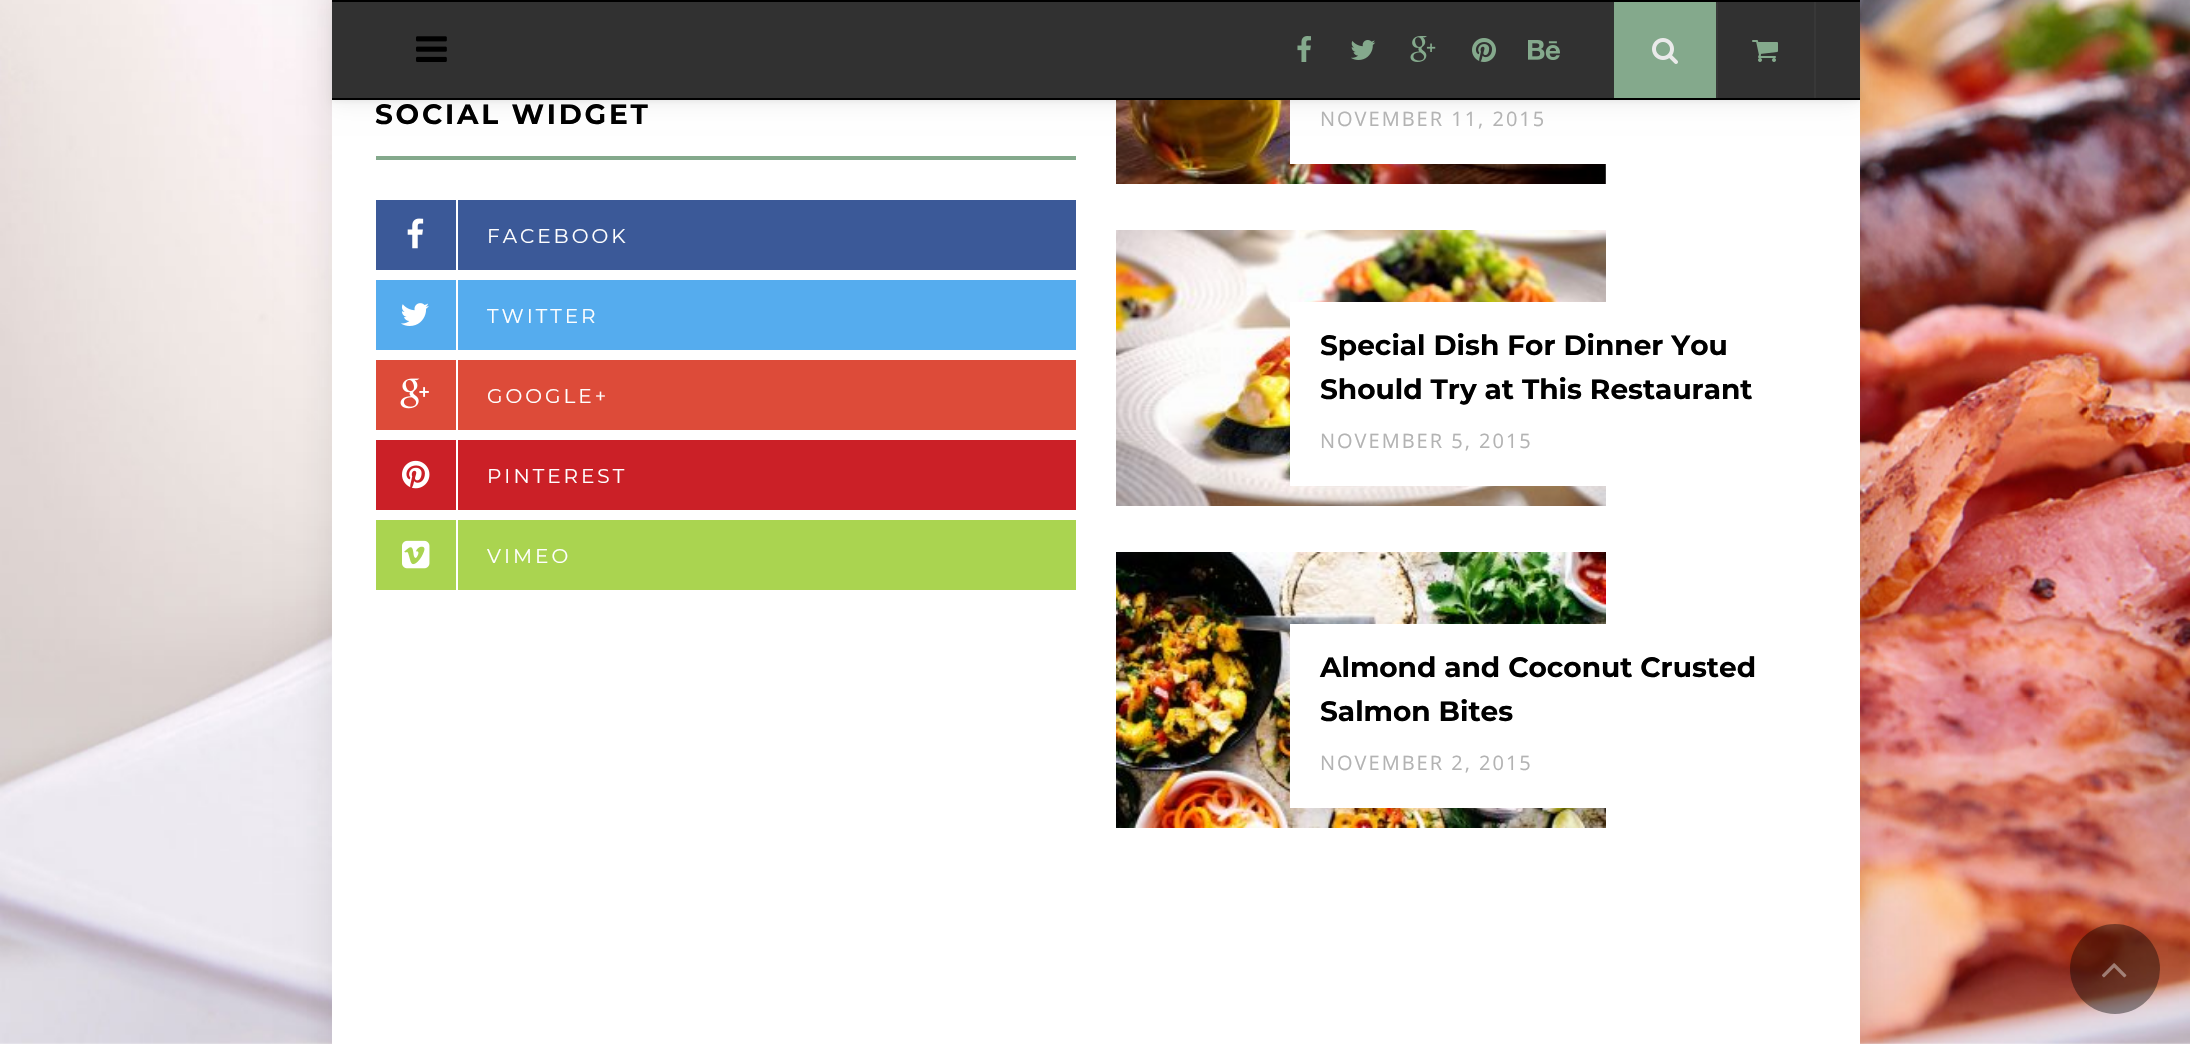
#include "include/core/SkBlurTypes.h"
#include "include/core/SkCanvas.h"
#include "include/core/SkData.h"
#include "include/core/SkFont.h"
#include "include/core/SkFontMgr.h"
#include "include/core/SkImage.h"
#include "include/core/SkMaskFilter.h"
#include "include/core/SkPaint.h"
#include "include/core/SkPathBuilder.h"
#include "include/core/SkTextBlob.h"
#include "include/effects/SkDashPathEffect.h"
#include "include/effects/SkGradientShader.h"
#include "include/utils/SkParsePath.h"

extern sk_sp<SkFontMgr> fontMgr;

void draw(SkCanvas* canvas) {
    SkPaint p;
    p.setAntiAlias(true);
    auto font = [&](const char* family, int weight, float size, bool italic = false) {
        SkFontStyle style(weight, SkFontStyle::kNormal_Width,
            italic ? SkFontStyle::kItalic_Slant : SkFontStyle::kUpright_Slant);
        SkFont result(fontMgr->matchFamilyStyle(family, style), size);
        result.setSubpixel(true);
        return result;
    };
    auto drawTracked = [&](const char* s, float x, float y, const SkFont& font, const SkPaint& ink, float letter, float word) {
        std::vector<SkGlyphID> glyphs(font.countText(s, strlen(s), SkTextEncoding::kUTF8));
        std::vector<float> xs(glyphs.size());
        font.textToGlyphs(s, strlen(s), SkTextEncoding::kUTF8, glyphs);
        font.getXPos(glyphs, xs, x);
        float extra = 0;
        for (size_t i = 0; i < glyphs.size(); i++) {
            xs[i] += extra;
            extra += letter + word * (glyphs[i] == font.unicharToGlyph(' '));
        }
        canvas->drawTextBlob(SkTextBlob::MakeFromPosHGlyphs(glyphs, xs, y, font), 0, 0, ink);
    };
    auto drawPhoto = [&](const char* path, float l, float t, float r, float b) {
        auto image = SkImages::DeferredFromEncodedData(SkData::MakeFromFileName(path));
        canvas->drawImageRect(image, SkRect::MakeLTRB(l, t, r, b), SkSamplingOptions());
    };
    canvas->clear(0xFFFFFFFF);
    drawPhoto("media/1.png", 0, 0, 2190, 1044);
    p.setColor(0x1A000000);
    p.setMaskFilter(SkMaskFilter::MakeBlur(kNormal_SkBlurStyle, 20));
    canvas->drawRect(SkRect::MakeLTRB(332, -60, 1860, 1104), p);
    p.setMaskFilter(nullptr);
    p.setColor(0xFFFFFFFF);
    canvas->drawRect(SkRect::MakeLTRB(332, 100, 1860, 1044), p);
    drawPhoto("media/15.png", 1116, 100, 1606, 184);
    canvas->drawRect(SkRect::MakeLTRB(1290, 100, 1606, 164), p);
    p.setColor(0x0D000000);
    p.setMaskFilter(SkMaskFilter::MakeBlur(kNormal_SkBlurStyle, 2));
    canvas->drawRect(SkRect::MakeLTRB(332, 2, 1860, 102), p);
    p.setMaskFilter(nullptr);
    p.setMaskFilter(SkMaskFilter::MakeBlur(kNormal_SkBlurStyle, 10));
    canvas->drawRect(SkRect::MakeLTRB(332, 6, 1860, 106), p);
    p.setMaskFilter(nullptr);
    {
        const struct { float l, t, r, b; SkColor color; } items[] = {
            {332, 2, 1860, 98, 0xFF313131},
            {332, 0, 1860, 2, 0xFF000000},
            {332, 98, 1860, 100, 0xFF000000},
        };
        for (auto [l, t, r, b, color] : items) {
            p.setColor(color);
            canvas->drawRect(SkRect::MakeLTRB(l, t, r, b), p);
        }
    }
    drawPhoto("media/2.png", 416, 36, 447, 62);
    drawPhoto("media/3.png", 1297, 36, 1311, 62);
    drawPhoto("media/4.png", 1351, 40, 1376, 60);
    drawPhoto("media/5.png", 1410, 36, 1436, 62);
    drawPhoto("media/6.png", 1472, 38, 1496, 62);
    drawPhoto("media/7.png", 1528, 40, 1560, 60);
    p.setColor(0xFF84A98C);
    canvas->drawRect(SkRect::MakeLTRB(1614, 2, 1716, 98), p);
    drawPhoto("media/8.png", 1652, 38, 1678, 64);
    p.setColor(0xFF383838);
    canvas->drawRect(SkRect::MakeLTRB(1814, 2, 1816, 98), p);
    canvas->drawRect(SkRect::MakeLTRB(1716, 2, 1718, 98), p);
    drawPhoto("media/9.png", 1752, 40, 1778, 62);
    p.setColor(0xFF84A98C);
    canvas->drawRect(SkRect::MakeLTRB(376, 156, 1076, 160), p);
    auto font1 = font("Montserrat", 700, 28);
    p.setColor(0xFF000000);
    drawTracked("SOCIAL WIDGET", 375, 124, font1, p, 2.75f, 0);
    p.setColor(0xFF3B5998);
    canvas->drawRect(SkRect::MakeLTRB(376, 200, 1076, 270), p);
    p.setColor(0xFFFFFFFF);
    canvas->drawRect(SkRect::MakeLTRB(456, 200, 458, 270), p);
    drawPhoto("media/10.png", 407, 218, 424, 249);
    auto font2 = font("Montserrat", 400, 20);
    drawTracked("FACEBOOK", 487, 243, font2, p, 3, 0);
    p.setColor(0xFF55ACEE);
    canvas->drawRect(SkRect::MakeLTRB(376, 280, 1076, 350), p);
    p.setColor(0xFFFFFFFF);
    canvas->drawRect(SkRect::MakeLTRB(456, 280, 458, 350), p);
    drawPhoto("media/11.png", 401, 303, 429, 326);
    drawTracked("TWITTER", 487, 323, font2, p, 3, 0);
    p.setColor(0xFFDD4B39);
    canvas->drawRect(SkRect::MakeLTRB(376, 360, 1076, 430), p);
    p.setColor(0xFFFFFFFF);
    canvas->drawRect(SkRect::MakeLTRB(456, 360, 458, 430), p);
    drawPhoto("media/12.png", 400, 378, 429, 409);
    drawTracked("GOOGLE+", 487, 403, font2, p, 3, 0);
    p.setColor(0xFFCB2027);
    canvas->drawRect(SkRect::MakeLTRB(376, 440, 1076, 510), p);
    p.setColor(0xFFFFFFFF);
    canvas->drawRect(SkRect::MakeLTRB(456, 440, 458, 510), p);
    drawPhoto("media/13.png", 402, 460, 430, 489);
    drawTracked("PINTEREST", 487, 483, font2, p, 3, 0);
    p.setColor(0xFFAAD450);
    canvas->drawRect(SkRect::MakeLTRB(376, 520, 1076, 590), p);
    p.setColor(0xFFFFFFFF);
    canvas->drawRect(SkRect::MakeLTRB(456, 520, 458, 590), p);
    drawPhoto("media/14.png", 402, 540, 430, 569);
    drawTracked("VIMEO", 487, 563, font2, p, 3, 0);
    auto font3 = font("Open Sans", 400, 20);
    p.setColor(0xFFB3B3B3);
    drawTracked("NOVEMBER 11, 2015", 1320, 126, font3, p, 2, 0);
    drawPhoto("media/16.png", 1116, 230, 1606, 506);
    p.setColor(0xFFFFFFFF);
    canvas->drawRect(SkRect::MakeLTRB(1290, 302, 1606, 486), p);
    p.setColor(0xFF000000);
    canvas->drawString("Special Dish For Dinner You", 1320, 355, font1, p);
    canvas->drawString("Should Try at This Restaurant", 1320, 399, font1, p);
    p.setColor(0xFFB3B3B3);
    drawTracked("NOVEMBER 5, 2015", 1320, 448, font3, p, 2, 0);
    drawPhoto("media/17.png", 1116, 552, 1606, 828);
    p.setColor(0xFFFFFFFF);
    canvas->drawRect(SkRect::MakeLTRB(1290, 624, 1606, 808), p);
    p.setColor(0xFF000000);
    canvas->drawString("Almond and Coconut Crusted", 1320, 677, font1, p);
    canvas->drawString("Salmon Bites", 1320, 721, font1, p);
    p.setColor(0xFFB3B3B3);
    drawTracked("NOVEMBER 2, 2015", 1320, 770, font3, p, 2, 0);
    p.setColor(0x66000000);
    canvas->drawCircle(2115, 969, 45, p);
    drawPhoto("media/18.png", 2102, 963, 2127, 978);
}
